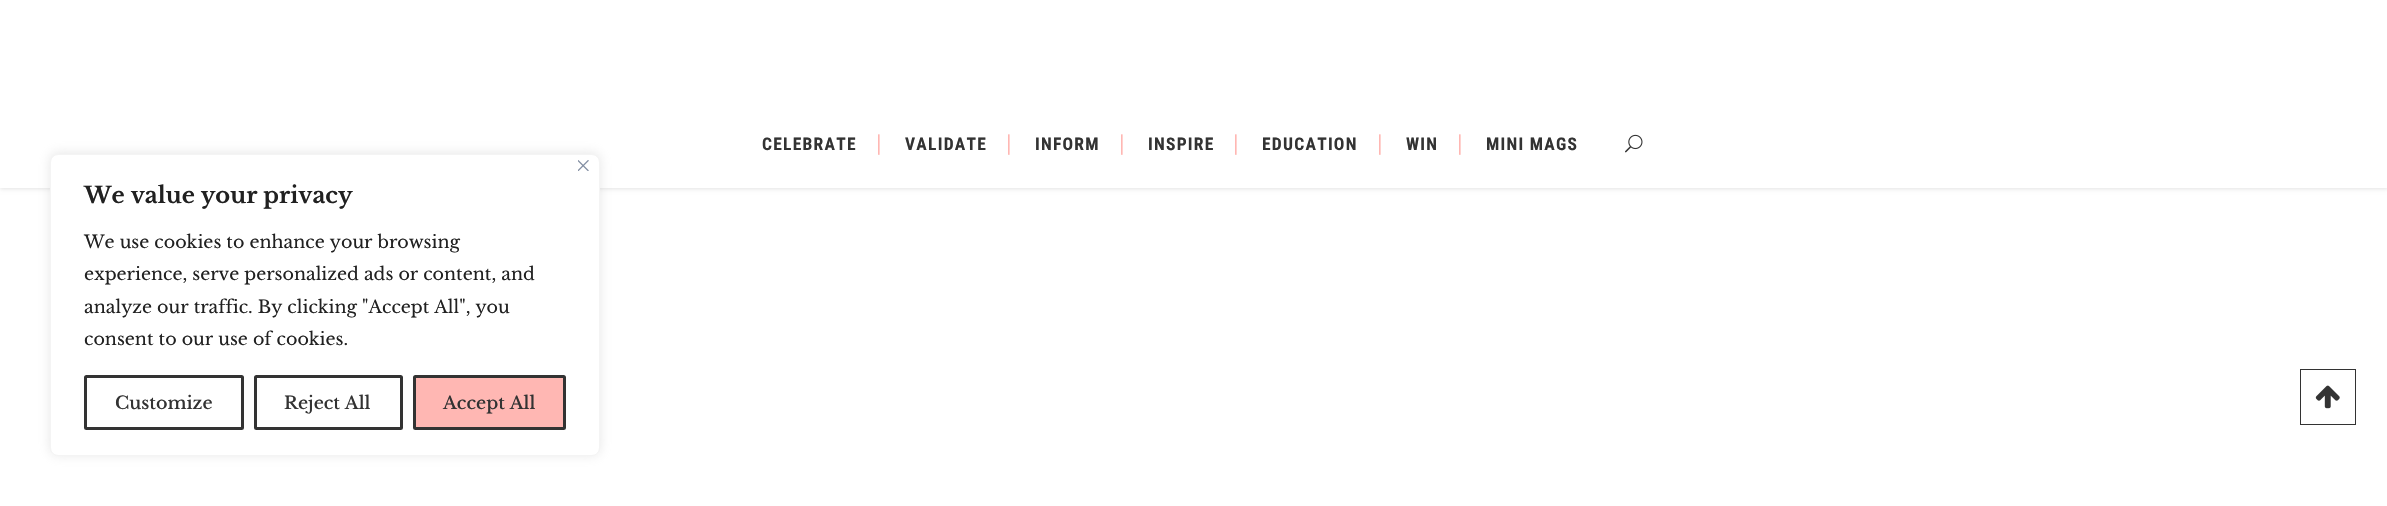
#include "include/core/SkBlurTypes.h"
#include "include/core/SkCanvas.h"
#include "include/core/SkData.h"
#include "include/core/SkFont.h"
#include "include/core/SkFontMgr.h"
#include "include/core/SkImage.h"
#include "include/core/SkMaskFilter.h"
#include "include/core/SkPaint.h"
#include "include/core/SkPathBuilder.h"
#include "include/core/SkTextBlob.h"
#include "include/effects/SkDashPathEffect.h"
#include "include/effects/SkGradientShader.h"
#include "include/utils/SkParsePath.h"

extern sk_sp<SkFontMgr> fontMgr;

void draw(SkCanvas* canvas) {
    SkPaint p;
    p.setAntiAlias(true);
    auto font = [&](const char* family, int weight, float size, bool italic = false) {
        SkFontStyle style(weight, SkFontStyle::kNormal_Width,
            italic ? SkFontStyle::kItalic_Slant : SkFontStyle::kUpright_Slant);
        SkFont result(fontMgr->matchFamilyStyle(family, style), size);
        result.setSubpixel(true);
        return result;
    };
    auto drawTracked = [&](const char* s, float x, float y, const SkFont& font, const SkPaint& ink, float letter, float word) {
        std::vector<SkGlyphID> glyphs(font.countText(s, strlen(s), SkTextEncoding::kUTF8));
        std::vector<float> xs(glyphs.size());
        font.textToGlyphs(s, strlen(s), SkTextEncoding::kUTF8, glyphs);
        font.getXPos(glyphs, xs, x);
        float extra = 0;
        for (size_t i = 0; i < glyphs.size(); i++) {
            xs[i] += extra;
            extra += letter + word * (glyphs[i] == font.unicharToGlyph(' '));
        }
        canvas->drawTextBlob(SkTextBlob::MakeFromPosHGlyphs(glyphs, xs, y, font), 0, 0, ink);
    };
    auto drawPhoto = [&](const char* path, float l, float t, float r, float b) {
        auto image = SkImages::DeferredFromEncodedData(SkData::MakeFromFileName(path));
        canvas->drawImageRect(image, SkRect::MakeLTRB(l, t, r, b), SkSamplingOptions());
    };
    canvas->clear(0xFFFFFFFF);
    p.setColor(0x1C000000);
    p.setMaskFilter(SkMaskFilter::MakeBlur(kNormal_SkBlurStyle, 2));
    canvas->drawRect(SkRect::MakeLTRB(0, 1, 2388, 189), p);
    p.setMaskFilter(nullptr);
    p.setColor(0xFFFFFFFF);
    canvas->drawRect(SkRect::MakeLTRB(0, 0, 2387, 188), p);
    auto font1 = font("Roboto Condensed", 700, 17.5f);
    p.setColor(0xFF333333);
    drawTracked("CELEBRATE", 762, 150, font1, p, 1.25f, 0);
    auto font2 = font("Libre Baskerville", 400, 19);
    p.setColor(0xFFFFB7B3);
    canvas->drawString("|", 876, 150, font2, p);
    p.setColor(0xFF333333);
    drawTracked("VALIDATE", 905, 150, font1, p, 1.25f, 0);
    p.setColor(0xFFFFB7B3);
    canvas->drawString("|", 1006, 150, font2, p);
    p.setColor(0xFF333333);
    drawTracked("INFORM", 1035, 150, font1, p, 1.25f, 0);
    p.setColor(0xFFFFB7B3);
    canvas->drawString("|", 1119, 150, font2, p);
    p.setColor(0xFF333333);
    drawTracked("INSPIRE", 1148, 150, font1, p, 1.25f, 0);
    p.setColor(0xFFFFB7B3);
    canvas->drawString("|", 1233, 150, font2, p);
    p.setColor(0xFF333333);
    drawTracked("EDUCATION", 1262, 150, font1, p, 1.25f, 0);
    p.setColor(0xFFFFB7B3);
    canvas->drawString("|", 1377, 150, font2, p);
    p.setColor(0xFF333333);
    drawTracked("WIN", 1406, 150, font1, p, 1.25f, 0);
    p.setColor(0xFFFFB7B3);
    canvas->drawString("|", 1457, 150, font2, p);
    p.setColor(0xFF333333);
    drawTracked("MINI MAGS", 1486, 150, font1, p, 1.25f, 0);
    drawPhoto("media/1.png", 1625, 134, 1643, 153);
    p.setStyle(SkPaint::kStroke_Style);
    p.setStrokeWidth(1);
    canvas->drawRect(SkRect::MakeLTRB(2300.5f, 369.5f, 2355.5f, 424.5f), p);
    drawPhoto("media/2.png", 2315, 385, 2340, 409);
    p.setStyle(SkPaint::kFill_Style);
    p.setColor(0x4DACABAB);
    p.setMaskFilter(SkMaskFilter::MakeBlur(kNormal_SkBlurStyle, 6));
    canvas->drawRoundRect(SkRect::MakeLTRB(50, 153, 600, 455), 8, 8, p);
    p.setMaskFilter(nullptr);
    p.setColor(0xFFFFFFFF);
    canvas->drawRoundRect(SkRect::MakeLTRB(50.5f, 154.5f, 599.5f, 455.5f), 7.5f, 7.5f, p);
    p.setStyle(SkPaint::kStroke_Style);
    p.setColor(0xFFF4F4F4);
    canvas->drawRoundRect(SkRect::MakeLTRB(50.5f, 154.5f, 599.5f, 455.5f), 7.5f, 7.5f, p);
    drawPhoto("media/3.png", 578, 160, 589, 171);
    auto font3 = font("Libre Baskerville", 700, 22.5f);
    p.setStyle(SkPaint::kFill_Style);
    p.setColor(0xFF212121);
    canvas->drawString("We value your privacy", 84, 203, font3, p);
    auto font4 = font("Libre Baskerville", 400, 17.5f);
    {
        const struct { const char* s; float x, y; } items[] = {
            {"We use cookies to enhance your browsing", 84, 248},
            {"experience, serve personalized ads or content, and", 84, 280},
            {"analyze our traffic. By clicking \"Accept All\", you", 84, 313},
            {"consent to our use of cookies.", 84, 345},
        };
        for (auto [s, x, y] : items) {
            canvas->drawString(s, x, y, font4, p);
        }
    }
    p.setStyle(SkPaint::kStroke_Style);
    p.setStrokeWidth(3);
    p.setColor(0xFF333333);
    canvas->drawRoundRect(SkRect::MakeLTRB(85.5f, 376.5f, 242.5f, 428.5f), 1, 1, p);
    auto font5 = font("Libre Baskerville", 500, 17.5f);
    p.setStyle(SkPaint::kFill_Style);
    canvas->drawString("Customize", 115, 409, font5, p);
    p.setStyle(SkPaint::kStroke_Style);
    canvas->drawRoundRect(SkRect::MakeLTRB(255.5f, 376.5f, 401.5f, 428.5f), 1, 1, p);
    p.setStyle(SkPaint::kFill_Style);
    canvas->drawString("Reject All", 284, 409, font5, p);
    p.setColor(0xFFFFB7B3);
    canvas->drawRoundRect(SkRect::MakeLTRB(414.5f, 376.5f, 564.5f, 428.5f), 1, 1, p);
    p.setStyle(SkPaint::kStroke_Style);
    p.setColor(0xFF333333);
    canvas->drawRoundRect(SkRect::MakeLTRB(414.5f, 376.5f, 564.5f, 428.5f), 1, 1, p);
    p.setStyle(SkPaint::kFill_Style);
    canvas->drawString("Accept All", 443, 409, font5, p);
}
